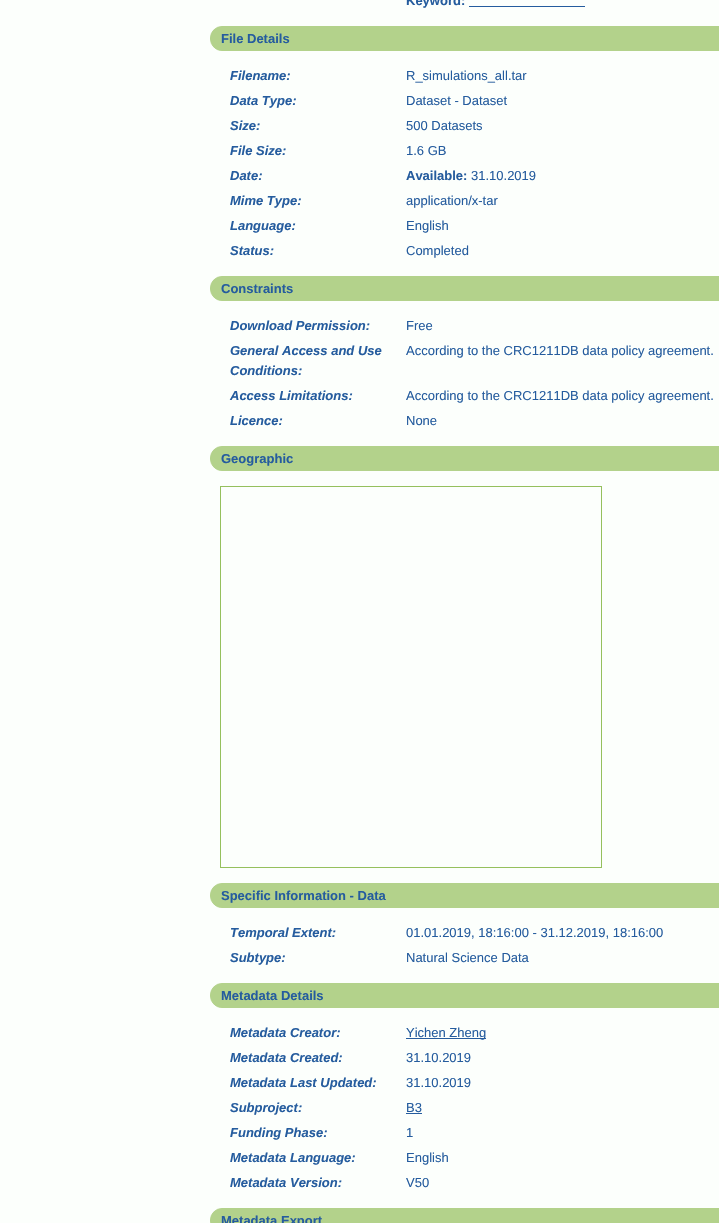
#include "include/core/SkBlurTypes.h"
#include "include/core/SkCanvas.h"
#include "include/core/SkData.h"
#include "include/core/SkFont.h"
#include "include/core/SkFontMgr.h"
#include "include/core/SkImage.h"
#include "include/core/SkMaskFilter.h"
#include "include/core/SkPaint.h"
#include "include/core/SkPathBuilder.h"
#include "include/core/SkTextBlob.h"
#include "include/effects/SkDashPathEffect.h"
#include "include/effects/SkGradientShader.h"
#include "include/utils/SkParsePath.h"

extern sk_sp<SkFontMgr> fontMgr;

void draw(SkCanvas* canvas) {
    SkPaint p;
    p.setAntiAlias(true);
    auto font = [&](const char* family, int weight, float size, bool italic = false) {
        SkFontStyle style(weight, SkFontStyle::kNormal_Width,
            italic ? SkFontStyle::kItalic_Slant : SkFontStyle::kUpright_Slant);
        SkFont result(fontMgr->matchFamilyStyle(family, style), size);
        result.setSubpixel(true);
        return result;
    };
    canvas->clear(0xFFFCFFFC);
    auto font1 = font("Liberation Sans", 700, 13);
    p.setColor(0xFF255C9E);
    canvas->drawString("Keyword:", 406, 5, font1, p);
    canvas->drawRect(SkRect::MakeLTRB(469, 6, 585, 7), p);
    p.setColor(0xFFB3D28B);
    canvas->drawRoundRect(SkRect::MakeLTRB(210.5f, 26.5f, 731.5f, 50.5f), 11.5f, 11.5f, p);
    p.setStyle(SkPaint::kStroke_Style);
    p.setStrokeWidth(1);
    canvas->drawRoundRect(SkRect::MakeLTRB(210.5f, 26.5f, 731.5f, 50.5f), 11.5f, 11.5f, p);
    p.setStyle(SkPaint::kFill_Style);
    p.setColor(0xFF255C9E);
    canvas->drawString("File Details", 221, 43, font1, p);
    auto font2 = font("Liberation Sans", 700, 13, true);
    canvas->drawString("Filename:", 230, 80, font2, p);
    auto font3 = font("Liberation Sans", 400, 13);
    canvas->drawString("R_simulations_all.tar", 406, 80, font3, p);
    canvas->drawString("Data Type:", 230, 105, font2, p);
    canvas->drawString("Dataset - Dataset", 406, 105, font3, p);
    canvas->drawString("Size:", 230, 130, font2, p);
    canvas->drawString("500 Datasets", 406, 130, font3, p);
    canvas->drawString("File Size:", 230, 155, font2, p);
    canvas->drawString("1.6 GB", 406, 155, font3, p);
    canvas->drawString("Date:", 230, 180, font2, p);
    canvas->drawString("Available:", 406, 180, font1, p);
    canvas->drawString("31.10.2019", 471, 180, font3, p);
    canvas->drawString("Mime Type:", 230, 205, font2, p);
    canvas->drawString("application/x-tar", 406, 205, font3, p);
    canvas->drawString("Language:", 230, 230, font2, p);
    canvas->drawString("English", 406, 230, font3, p);
    canvas->drawString("Status:", 230, 255, font2, p);
    canvas->drawString("Completed", 406, 255, font3, p);
    p.setColor(0xFFB3D28B);
    canvas->drawRoundRect(SkRect::MakeLTRB(210.5f, 276.5f, 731.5f, 300.5f), 11.5f, 11.5f, p);
    p.setStyle(SkPaint::kStroke_Style);
    canvas->drawRoundRect(SkRect::MakeLTRB(210.5f, 276.5f, 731.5f, 300.5f), 11.5f, 11.5f, p);
    p.setStyle(SkPaint::kFill_Style);
    p.setColor(0xFF255C9E);
    canvas->drawString("Constraints", 221, 293, font1, p);
    canvas->drawString("Download Permission:", 230, 330, font2, p);
    canvas->drawString("Free", 406, 330, font3, p);
    canvas->drawString("General Access and Use", 230, 355, font2, p);
    canvas->drawString("Conditions:", 230, 375, font2, p);
    canvas->drawString("According to the CRC1211DB data policy agreement.", 406, 355, font3, p);
    canvas->drawString("Access Limitations:", 230, 400, font2, p);
    canvas->drawString("According to the CRC1211DB data policy agreement.", 406, 400, font3, p);
    canvas->drawString("Licence:", 230, 425, font2, p);
    canvas->drawString("None", 406, 425, font3, p);
    p.setColor(0xFFB3D28B);
    canvas->drawRoundRect(SkRect::MakeLTRB(210.5f, 446.5f, 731.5f, 470.5f), 11.5f, 11.5f, p);
    p.setStyle(SkPaint::kStroke_Style);
    canvas->drawRoundRect(SkRect::MakeLTRB(210.5f, 446.5f, 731.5f, 470.5f), 11.5f, 11.5f, p);
    p.setStyle(SkPaint::kFill_Style);
    p.setColor(0xFF255C9E);
    canvas->drawString("Geographic", 221, 463, font1, p);
    p.setStyle(SkPaint::kStroke_Style);
    p.setColor(0xFF95C05D);
    canvas->drawRect(SkRect::MakeLTRB(220.5f, 486.5f, 601.5f, 867.5f), p);
    p.setStyle(SkPaint::kFill_Style);
    p.setColor(0xFFB3D28B);
    canvas->drawRoundRect(SkRect::MakeLTRB(210.5f, 883.5f, 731.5f, 907.5f), 11.5f, 11.5f, p);
    p.setStyle(SkPaint::kStroke_Style);
    canvas->drawRoundRect(SkRect::MakeLTRB(210.5f, 883.5f, 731.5f, 907.5f), 11.5f, 11.5f, p);
    p.setStyle(SkPaint::kFill_Style);
    p.setColor(0xFF255C9E);
    canvas->drawString("Specific Information - Data", 221, 900, font1, p);
    canvas->drawString("Temporal Extent:", 230, 937, font2, p);
    canvas->drawString("01.01.2019, 18:16:00 - 31.12.2019, 18:16:00", 406, 937, font3, p);
    canvas->drawString("Subtype:", 230, 962, font2, p);
    canvas->drawString("Natural Science Data", 406, 962, font3, p);
    p.setColor(0xFFB3D28B);
    canvas->drawRoundRect(SkRect::MakeLTRB(210.5f, 983.5f, 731.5f, 1007.5f), 11.5f, 11.5f, p);
    p.setStyle(SkPaint::kStroke_Style);
    canvas->drawRoundRect(SkRect::MakeLTRB(210.5f, 983.5f, 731.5f, 1007.5f), 11.5f, 11.5f, p);
    p.setStyle(SkPaint::kFill_Style);
    p.setColor(0xFF255C9E);
    canvas->drawString("Metadata Details", 221, 1000, font1, p);
    canvas->drawString("Metadata Creator:", 230, 1037, font2, p);
    canvas->drawRect(SkRect::MakeLTRB(406, 1038, 486, 1039), p);
    canvas->drawString("Yichen Zheng", 406, 1037, font3, p);
    canvas->drawString("Metadata Created:", 230, 1062, font2, p);
    canvas->drawString("31.10.2019", 406, 1062, font3, p);
    canvas->drawString("Metadata Last Updated:", 230, 1087, font2, p);
    canvas->drawString("31.10.2019", 406, 1087, font3, p);
    canvas->drawString("Subproject:", 230, 1112, font2, p);
    canvas->drawString("B3", 406, 1112, font3, p);
    canvas->drawRect(SkRect::MakeLTRB(406, 1113, 422, 1114), p);
    canvas->drawString("Funding Phase:", 230, 1137, font2, p);
    canvas->drawString("1", 406, 1137, font3, p);
    canvas->drawString("Metadata Language:", 230, 1162, font2, p);
    canvas->drawString("English", 406, 1162, font3, p);
    canvas->drawString("Metadata Version:", 230, 1187, font2, p);
    canvas->drawString("V50", 406, 1187, font3, p);
    p.setColor(0xFFB3D28B);
    canvas->drawRoundRect(SkRect::MakeLTRB(210.5f, 1208.5f, 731.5f, 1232.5f), 11.5f, 11.5f, p);
    p.setStyle(SkPaint::kStroke_Style);
    canvas->drawRoundRect(SkRect::MakeLTRB(210.5f, 1208.5f, 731.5f, 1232.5f), 11.5f, 11.5f, p);
    p.setStyle(SkPaint::kFill_Style);
    p.setColor(0xFF255C9E);
    canvas->drawString("Metadata Export", 221, 1225, font1, p);
}
